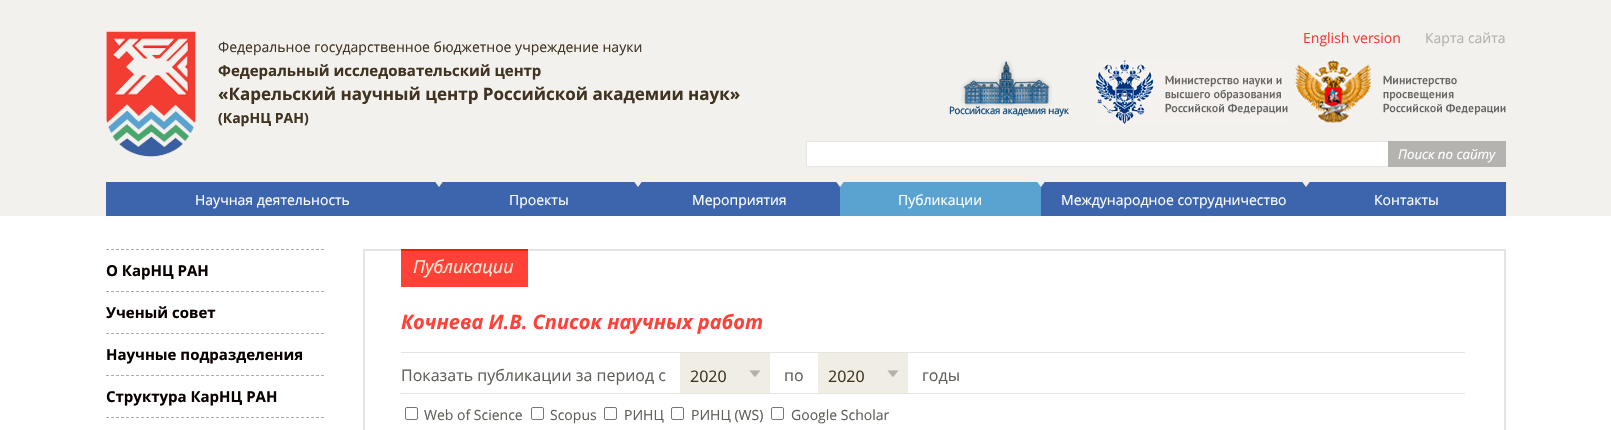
#include "include/core/SkBlurTypes.h"
#include "include/core/SkCanvas.h"
#include "include/core/SkData.h"
#include "include/core/SkFont.h"
#include "include/core/SkFontMgr.h"
#include "include/core/SkImage.h"
#include "include/core/SkMaskFilter.h"
#include "include/core/SkPaint.h"
#include "include/core/SkPathBuilder.h"
#include "include/core/SkTextBlob.h"
#include "include/effects/SkDashPathEffect.h"
#include "include/effects/SkGradientShader.h"
#include "include/utils/SkParsePath.h"

extern sk_sp<SkFontMgr> fontMgr;

void draw(SkCanvas* canvas) {
    SkPaint p;
    p.setAntiAlias(true);
    auto font = [&](const char* family, int weight, float size, bool italic = false) {
        SkFontStyle style(weight, SkFontStyle::kNormal_Width,
            italic ? SkFontStyle::kItalic_Slant : SkFontStyle::kUpright_Slant);
        SkFont result(fontMgr->matchFamilyStyle(family, style), size);
        result.setSubpixel(true);
        return result;
    };
    auto drawPhoto = [&](const char* path, float l, float t, float r, float b) {
        auto image = SkImages::DeferredFromEncodedData(SkData::MakeFromFileName(path));
        canvas->drawImageRect(image, SkRect::MakeLTRB(l, t, r, b), SkSamplingOptions());
    };
    canvas->clear(0xFFFFFFFF);
    p.setColor(0xFFF3F1EE);
    canvas->drawRect(SkRect::MakeLTRB(0, 0, 1611, 216), p);
    drawPhoto("media/1.png", 106, 31, 196, 157);
    auto font1 = font("Open Sans", 400, 14);
    p.setColor(0xFF403322);
    canvas->drawString("Федеральное государственное бюджетное учреждение науки", 218, 52, font1, p);
    auto font2 = font("Open Sans", 700, 15);
    canvas->drawString("Федеральный исследовательский центр", 218, 76, font2, p);
    auto font3 = font("Open Sans", 700, 17);
    canvas->drawString("«Карельский научный центр Российской академии наук»", 218, 100, font3, p);
    auto font4 = font("Open Sans", 700, 14);
    canvas->drawString("(КарНЦ РАН)", 218, 123, font4, p);
    p.setColor(0xFFF33D33);
    canvas->drawString("English version", 1303, 43, font1, p);
    p.setColor(0xFFB1B1AF);
    canvas->drawString("Карта сайта", 1425, 43, font1, p);
    drawPhoto("media/2.png", 949, 60, 1069, 117);
    drawPhoto("media/3.png", 1096, 60, 1288, 124);
    drawPhoto("media/4.png", 1295, 60, 1506, 124);
    {
        const struct { float l, t, r, b; SkColor color; } items[] = {
            {807, 142, 1388, 166, 0xFFFFFFFF},
            {806, 141, 1388, 142, 0xFFE5E4E0},
            {806, 166, 1388, 167, 0xFFE5E4E0},
            {806, 141, 807, 167, 0xFFE5E4E0},
            {1388, 141, 1506, 167, 0xFFB4B3AF},
        };
        for (auto [l, t, r, b, color] : items) {
            p.setColor(color);
            canvas->drawRect(SkRect::MakeLTRB(l, t, r, b), p);
        }
    }
    auto font5 = font("Open Sans", 400, 13.25f, true);
    p.setColor(0xFFFFFFFF);
    canvas->drawString("Поиск по сайту", 1398, 159, font5, p);
    p.setColor(0xFF3C65AD);
    canvas->drawRect(SkRect::MakeLTRB(106, 182, 840, 216), p);
    drawPhoto("media/5.png", 435, 182, 439, 187);
    p.setColor(0xFFFFFFFF);
    canvas->drawString("Научная деятельность", 195, 205, font1, p);
    drawPhoto("media/6.png", 439, 182, 638, 187);
    canvas->drawString("Проекты", 509, 205, font1, p);
    drawPhoto("media/7.png", 638, 182, 840, 187);
    canvas->drawString("Мероприятия", 692, 205, font1, p);
    p.setColor(0xFF5AA3D0);
    canvas->drawRect(SkRect::MakeLTRB(840, 182, 1041, 216), p);
    drawPhoto("media/8.png", 840, 182, 1041, 187);
    p.setColor(0xFFFFFFFF);
    canvas->drawString("Публикации", 898, 205, font1, p);
    p.setColor(0xFF3C65AD);
    canvas->drawRect(SkRect::MakeLTRB(1041, 182, 1506, 216), p);
    drawPhoto("media/9.png", 1041, 182, 1306, 187);
    p.setColor(0xFFFFFFFF);
    canvas->drawString("Международное сотрудничество", 1061, 205, font1, p);
    drawPhoto("media/10.png", 1306, 182, 1310, 187);
    canvas->drawString("Контакты", 1374, 205, font1, p);
    p.setStyle(SkPaint::kStroke_Style);
    p.setStrokeWidth(1);
    p.setColor(0xFFADADA7);
    p.setPathEffect(SkDashPathEffect::Make({{3, 2}}, 0));
    canvas->drawPath(SkPathBuilder().moveTo(106, 249.5f).lineTo(324, 249.5f).detach(), p);
    p.setPathEffect(nullptr);
    p.setStyle(SkPaint::kFill_Style);
    p.setColor(0xFF0A0000);
    canvas->drawString("О КарНЦ РАН", 106, 276, font2, p);
    p.setStyle(SkPaint::kStroke_Style);
    p.setColor(0xFFADADA7);
    p.setPathEffect(SkDashPathEffect::Make({{3, 2}}, 0));
    canvas->drawPath(SkPathBuilder().moveTo(106, 291.5f).lineTo(324, 291.5f).detach(), p);
    p.setPathEffect(nullptr);
    p.setStyle(SkPaint::kFill_Style);
    p.setColor(0xFF0A0000);
    canvas->drawString("Ученый совет", 106, 318, font2, p);
    p.setStyle(SkPaint::kStroke_Style);
    p.setColor(0xFFADADA7);
    p.setPathEffect(SkDashPathEffect::Make({{3, 2}}, 0));
    canvas->drawPath(SkPathBuilder().moveTo(106, 333.5f).lineTo(324, 333.5f).detach(), p);
    p.setPathEffect(nullptr);
    p.setStyle(SkPaint::kFill_Style);
    p.setColor(0xFF0A0000);
    canvas->drawString("Научные подразделения", 106, 360, font2, p);
    p.setStyle(SkPaint::kStroke_Style);
    p.setColor(0xFFADADA7);
    p.setPathEffect(SkDashPathEffect::Make({{3, 2}}, 0));
    canvas->drawPath(SkPathBuilder().moveTo(106, 375.5f).lineTo(324, 375.5f).detach(), p);
    p.setPathEffect(nullptr);
    p.setStyle(SkPaint::kFill_Style);
    p.setColor(0xFF0A0000);
    canvas->drawString("Структура КарНЦ РАН", 106, 402, font2, p);
    p.setStyle(SkPaint::kStroke_Style);
    p.setColor(0xFFADADA7);
    p.setPathEffect(SkDashPathEffect::Make({{3, 2}}, 0));
    canvas->drawPath(SkPathBuilder().moveTo(106, 417.5f).lineTo(324, 417.5f).detach(), p);
    p.setPathEffect(nullptr);
    p.setStrokeWidth(2);
    p.setColor(0xFFE5E4E0);
    canvas->drawRect(SkRect::MakeLTRB(364, 250, 1505, 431), p);
    p.setStyle(SkPaint::kFill_Style);
    p.setColor(0xFFFF4137);
    canvas->drawRect(SkRect::MakeLTRB(401, 251, 528, 287), p);
    p.setColor(0xFFE5210A);
    canvas->drawRect(SkRect::MakeLTRB(401, 249, 528, 251), p);
    auto font6 = font("Open Sans", 400, 18, true);
    p.setColor(0xFFF4ECD8);
    canvas->drawString("Публикации", 413, 273, font6, p);
    auto font7 = font("Open Sans", 700, 20, true);
    p.setColor(0xFFFF4137);
    canvas->drawString("Кочнева И.В. Список научных работ", 401, 329, font7, p);
    p.setColor(0xFFE5E4E0);
    canvas->drawRect(SkRect::MakeLTRB(401, 352, 1465, 353), p);
    canvas->drawRect(SkRect::MakeLTRB(401, 393, 1465, 394), p);
    auto font8 = font("Open Sans", 400, 16);
    p.setColor(0xFF605E58);
    canvas->drawString("Показать публикации за период с", 401, 381, font8, p);
    p.setColor(0xFFF0EDE4);
    canvas->drawRect(SkRect::MakeLTRB(680, 353, 770, 393), p);
    drawPhoto("media/11.png", 749, 370, 761, 377);
    p.setColor(0xFF403322);
    canvas->drawString("2020", 690, 382, font8, p);
    p.setColor(0xFF605E58);
    canvas->drawString("по", 784, 381, font8, p);
    p.setColor(0xFFF0EDE4);
    canvas->drawRect(SkRect::MakeLTRB(818, 353, 908, 393), p);
    drawPhoto("media/11.png", 887, 370, 899, 377);
    p.setColor(0xFF403322);
    canvas->drawString("2020", 828, 382, font8, p);
    p.setColor(0xFF605E58);
    canvas->drawString("годы", 922, 381, font8, p);
    p.setStyle(SkPaint::kStroke_Style);
    p.setStrokeWidth(1);
    p.setColor(0xFF767676);
    canvas->drawRoundRect(SkRect::MakeLTRB(405.5f, 407.5f, 417.5f, 419.5f), 1.5f, 1.5f, p);
    p.setStyle(SkPaint::kFill_Style);
    p.setColor(0xFF605E58);
    canvas->drawString("Web of Science", 424, 420, font1, p);
    p.setStyle(SkPaint::kStroke_Style);
    p.setColor(0xFF767676);
    canvas->drawRoundRect(SkRect::MakeLTRB(531.5f, 407.5f, 543.5f, 419.5f), 1.5f, 1.5f, p);
    p.setStyle(SkPaint::kFill_Style);
    p.setColor(0xFF605E58);
    canvas->drawString("Scopus", 550, 420, font1, p);
    p.setStyle(SkPaint::kStroke_Style);
    p.setColor(0xFF767676);
    canvas->drawRoundRect(SkRect::MakeLTRB(604.5f, 407.5f, 616.5f, 419.5f), 1.5f, 1.5f, p);
    p.setStyle(SkPaint::kFill_Style);
    p.setColor(0xFF605E58);
    canvas->drawString("РИНЦ", 624, 420, font1, p);
    p.setStyle(SkPaint::kStroke_Style);
    p.setColor(0xFF767676);
    canvas->drawRoundRect(SkRect::MakeLTRB(671.5f, 407.5f, 683.5f, 419.5f), 1.5f, 1.5f, p);
    p.setStyle(SkPaint::kFill_Style);
    p.setColor(0xFF605E58);
    canvas->drawString("РИНЦ (WS)", 691, 420, font1, p);
    p.setStyle(SkPaint::kStroke_Style);
    p.setColor(0xFF767676);
    canvas->drawRoundRect(SkRect::MakeLTRB(771.5f, 407.5f, 783.5f, 419.5f), 1.5f, 1.5f, p);
    p.setStyle(SkPaint::kFill_Style);
    p.setColor(0xFF605E58);
    canvas->drawString("Google Scholar", 791, 420, font1, p);
}
